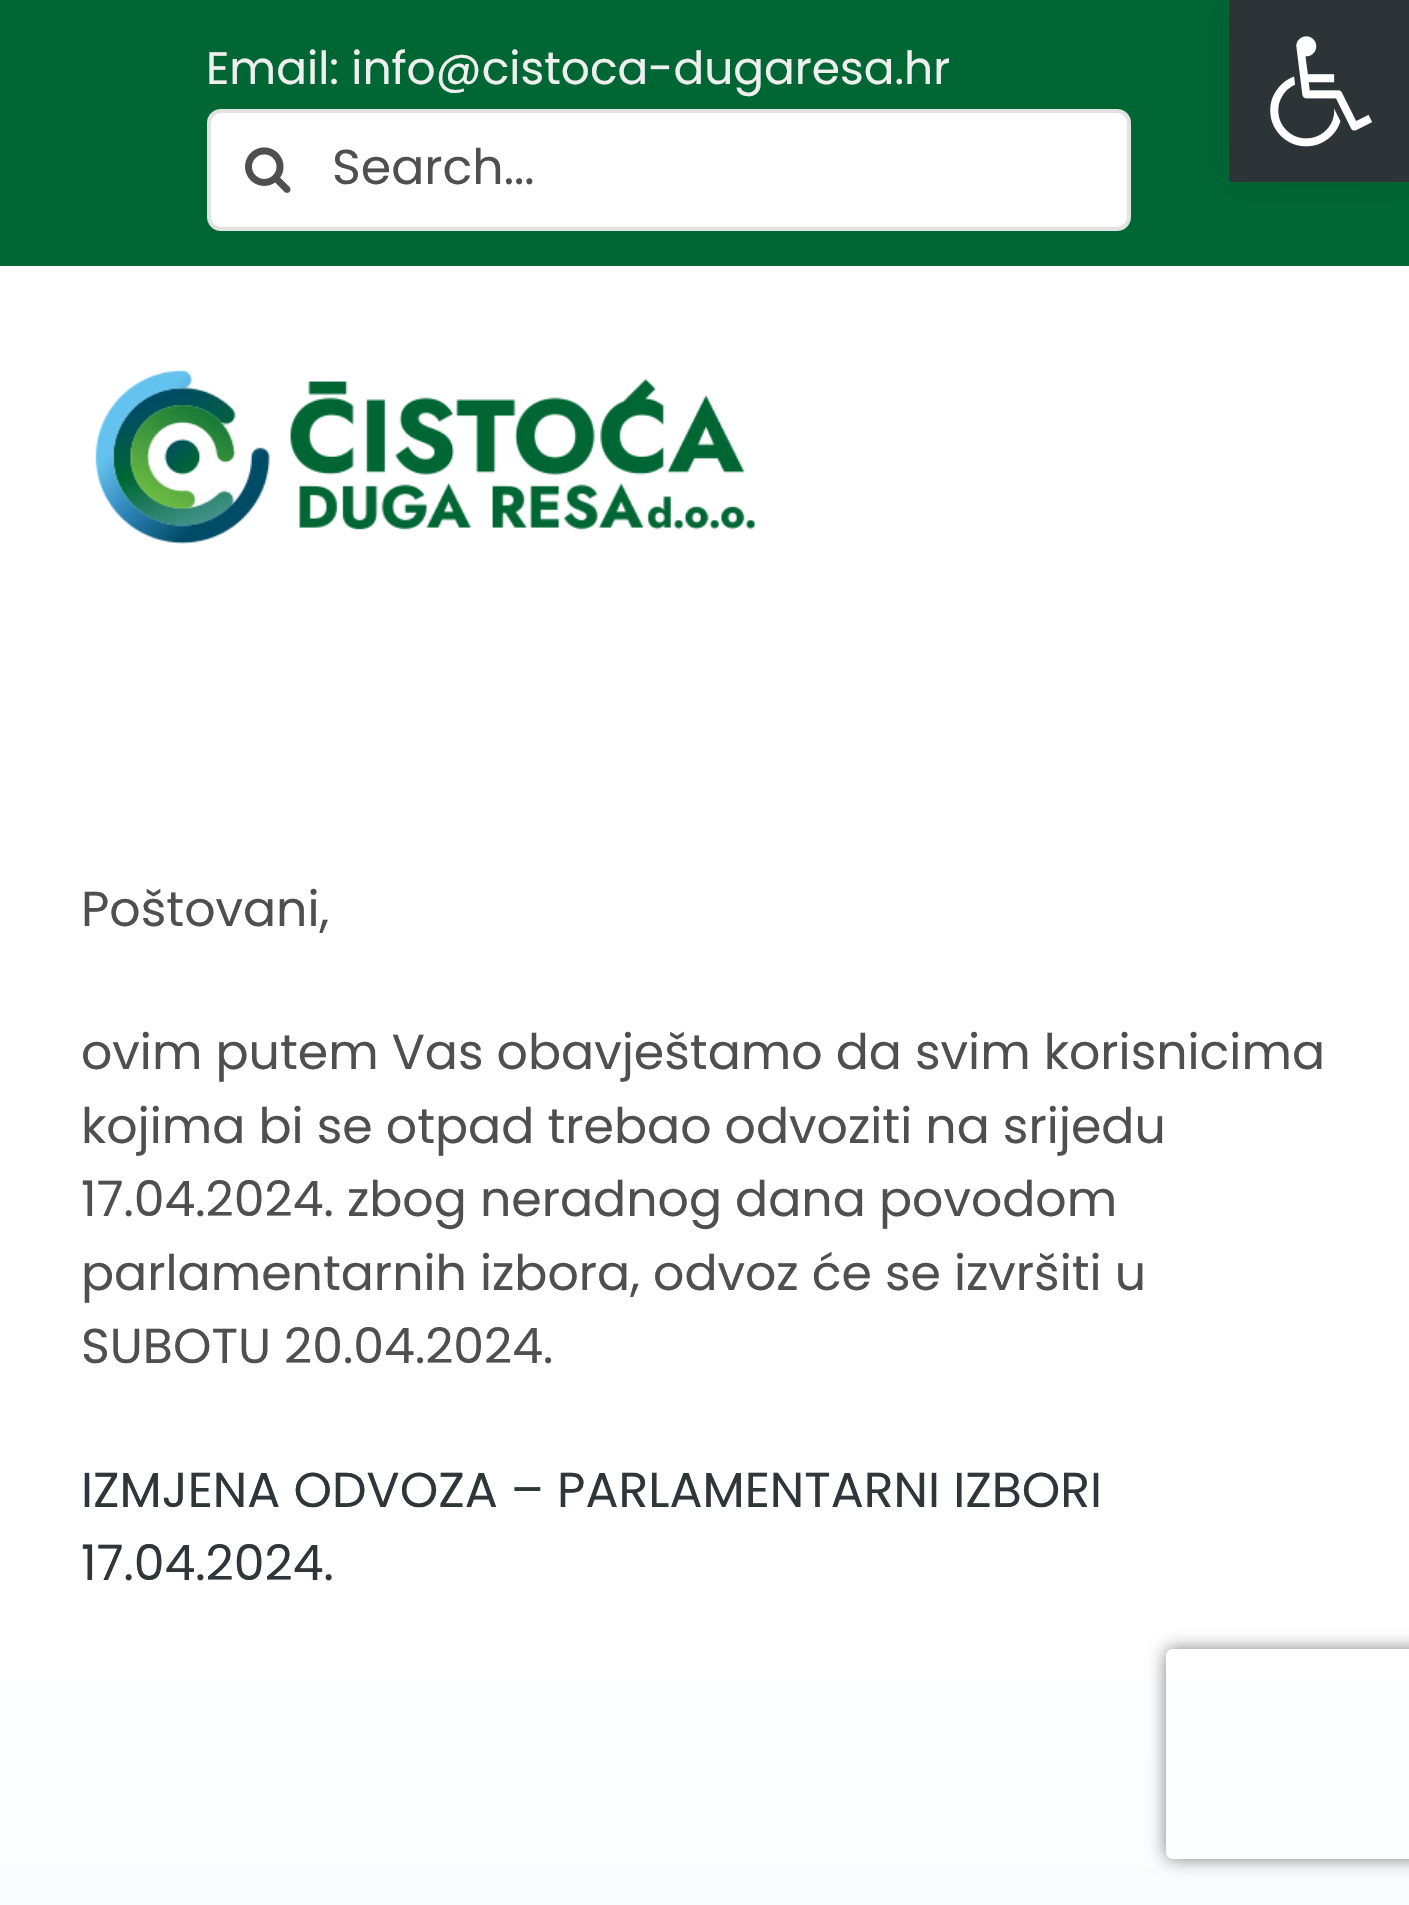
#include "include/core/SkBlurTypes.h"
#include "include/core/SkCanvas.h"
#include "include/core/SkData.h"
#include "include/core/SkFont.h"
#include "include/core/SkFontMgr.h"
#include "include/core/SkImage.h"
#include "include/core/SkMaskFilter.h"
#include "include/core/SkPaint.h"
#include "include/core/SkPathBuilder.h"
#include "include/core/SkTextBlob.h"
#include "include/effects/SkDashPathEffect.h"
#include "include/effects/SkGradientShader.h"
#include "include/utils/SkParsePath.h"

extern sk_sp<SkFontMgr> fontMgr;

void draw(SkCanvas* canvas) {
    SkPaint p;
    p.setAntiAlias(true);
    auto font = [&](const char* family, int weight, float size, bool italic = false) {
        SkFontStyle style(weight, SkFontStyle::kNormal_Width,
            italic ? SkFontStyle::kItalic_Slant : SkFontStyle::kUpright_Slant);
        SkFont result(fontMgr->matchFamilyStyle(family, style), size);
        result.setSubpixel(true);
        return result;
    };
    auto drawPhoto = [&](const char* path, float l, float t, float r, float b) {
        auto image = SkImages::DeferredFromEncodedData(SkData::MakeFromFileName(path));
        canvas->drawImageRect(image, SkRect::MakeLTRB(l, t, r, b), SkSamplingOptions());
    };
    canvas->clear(0xFFFFFFFF);
    p.setColor(0xFF006734);
    canvas->drawRect(SkRect::MakeLTRB(0, 0, 1409, 266), p);
    p.setColor(0x1A000000);
    p.setMaskFilter(SkMaskFilter::MakeBlur(kNormal_SkBlurStyle, 17.5f));
    canvas->drawRect(SkRect::MakeLTRB(1229, 0, 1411, 182), p);
    p.setMaskFilter(nullptr);
    p.setColor(0xFF2C3438);
    canvas->drawRect(SkRect::MakeLTRB(1229, 0, 1409, 182), p);
    drawPhoto("media/1.png", 1270, 36, 1372, 147);
    auto font1 = font("Poppins", 400, 45.5f);
    p.setColor(0xFFEFEFEF);
    canvas->drawString("Email: info@cistoca-dugaresa.hr", 206, 84, font1, p);
    p.setColor(0xFFFFFFFF);
    canvas->drawRoundRect(SkRect::MakeLTRB(209, 111, 1129, 229), 12, 12, p);
    p.setStyle(SkPaint::kStroke_Style);
    p.setStrokeWidth(4);
    p.setColor(0xFFE2E2E2);
    canvas->drawRoundRect(SkRect::MakeLTRB(209, 111, 1129, 229), 12, 12, p);
    drawPhoto("media/2.png", 245, 147, 291, 193);
    auto font2 = font("Poppins", 400, 49);
    p.setStyle(SkPaint::kFill_Style);
    p.setColor(0xFF4F4F4F);
    canvas->drawString("Search...", 332, 184, font2, p);
    drawPhoto("media/3.png", 95, 369, 755, 544);
    {
        const SkColor colors[] = {0xFFFFFFFF, 0xFFF5FCFF};
        const float stops[] = {0.45f, 1};
        const SkPoint ends[] = {{705, 875}, {705, 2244}};
        p.setShader(SkGradientShader::MakeLinear(ends, colors, stops, 2, SkTileMode::kClamp));
        p.setAlpha(255);
    }
    canvas->drawRect(SkRect::MakeLTRB(0, 1679, 1409, 1905), p);
    p.setShader(nullptr);
    p.setColor(0xFF4F4F4F);
    {
        const struct { const char* s; float x, y; } items[] = {
            {"Poštovani,", 81, 926},
            {"ovim putem Vas obavještamo da svim korisnicima", 81, 1069},
            {"kojima bi se otpad trebao odvoziti na srijedu", 81, 1143},
            {"17.04.2024. zbog neradnog dana povodom", 81, 1216},
            {"parlamentarnih izbora, odvoz će se izvršiti u", 81, 1290},
            {"SUBOTU 20.04.2024.", 81, 1363},
        };
        for (auto [s, x, y] : items) {
            canvas->drawString(s, x, y, font2, p);
        }
    }
    p.setColor(0xFF2E363A);
    canvas->drawString("IZMJENA ODVOZA – PARLAMENTARNI IZBORI", 81, 1507, font2, p);
    canvas->drawString("17.04.2024.", 81, 1580, font2, p);
    canvas->save();
    canvas->clipPath(SkPathBuilder(SkPathFillType::kEvenOdd).moveTo(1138, 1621).lineTo(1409, 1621).lineTo(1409, 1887).lineTo(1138, 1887).close().moveTo(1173, 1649).lineTo(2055, 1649).cubicTo(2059, 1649, 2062, 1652, 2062, 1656).lineTo(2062, 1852).cubicTo(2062, 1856, 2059, 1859, 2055, 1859).lineTo(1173, 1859).cubicTo(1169, 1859, 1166, 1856, 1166, 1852).lineTo(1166, 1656).cubicTo(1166, 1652, 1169, 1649, 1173, 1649).close().detach(), true);
    p.setColor(0xFF808080);
    p.setMaskFilter(SkMaskFilter::MakeBlur(kNormal_SkBlurStyle, 9));
    canvas->drawRoundRect(SkRect::MakeLTRB(1166, 1649, 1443, 1859), 7, 7, p);
    p.setMaskFilter(nullptr);
    canvas->restore();
}
